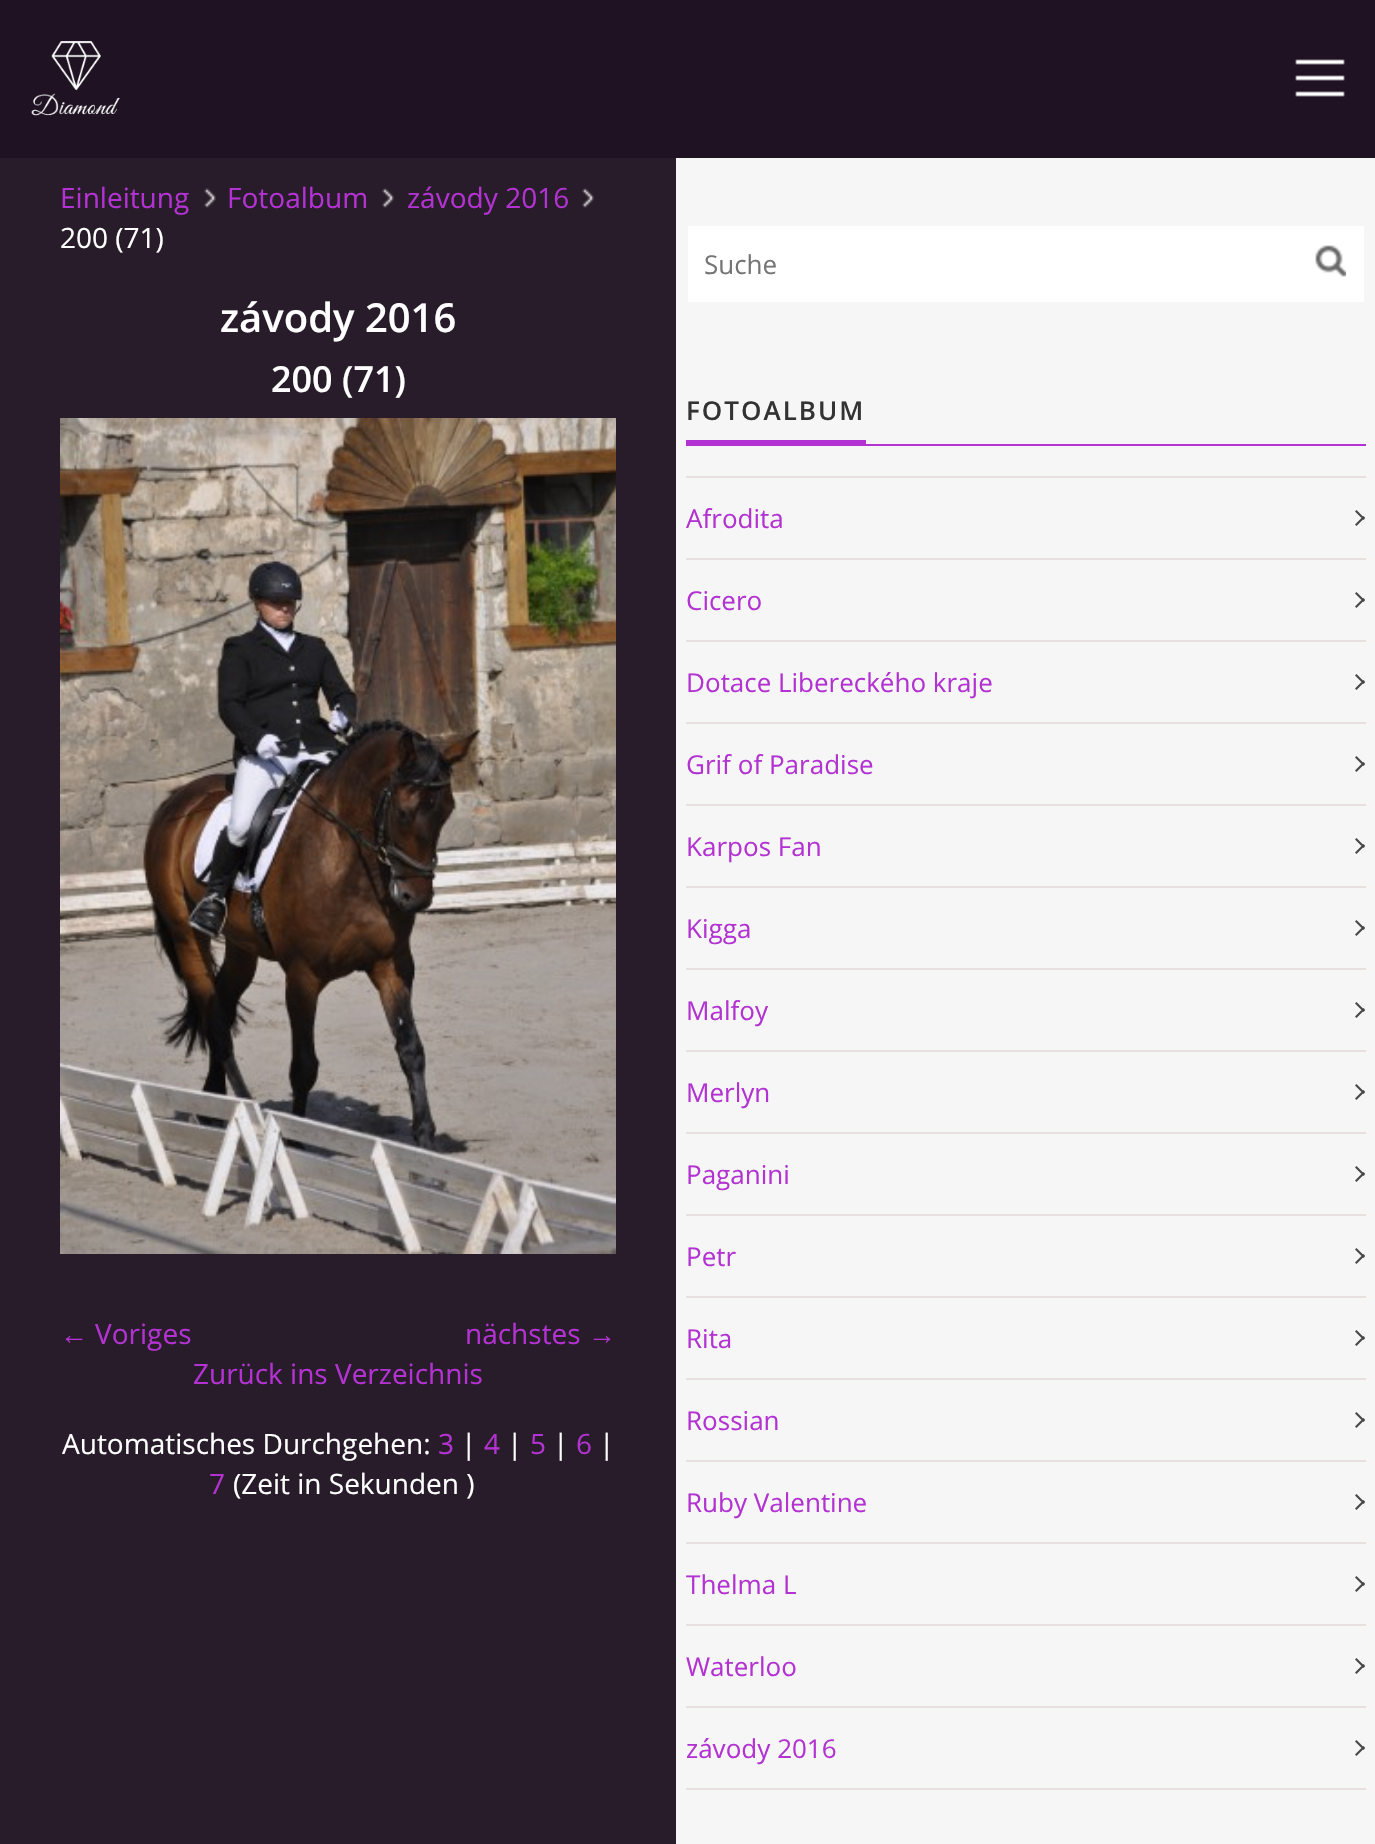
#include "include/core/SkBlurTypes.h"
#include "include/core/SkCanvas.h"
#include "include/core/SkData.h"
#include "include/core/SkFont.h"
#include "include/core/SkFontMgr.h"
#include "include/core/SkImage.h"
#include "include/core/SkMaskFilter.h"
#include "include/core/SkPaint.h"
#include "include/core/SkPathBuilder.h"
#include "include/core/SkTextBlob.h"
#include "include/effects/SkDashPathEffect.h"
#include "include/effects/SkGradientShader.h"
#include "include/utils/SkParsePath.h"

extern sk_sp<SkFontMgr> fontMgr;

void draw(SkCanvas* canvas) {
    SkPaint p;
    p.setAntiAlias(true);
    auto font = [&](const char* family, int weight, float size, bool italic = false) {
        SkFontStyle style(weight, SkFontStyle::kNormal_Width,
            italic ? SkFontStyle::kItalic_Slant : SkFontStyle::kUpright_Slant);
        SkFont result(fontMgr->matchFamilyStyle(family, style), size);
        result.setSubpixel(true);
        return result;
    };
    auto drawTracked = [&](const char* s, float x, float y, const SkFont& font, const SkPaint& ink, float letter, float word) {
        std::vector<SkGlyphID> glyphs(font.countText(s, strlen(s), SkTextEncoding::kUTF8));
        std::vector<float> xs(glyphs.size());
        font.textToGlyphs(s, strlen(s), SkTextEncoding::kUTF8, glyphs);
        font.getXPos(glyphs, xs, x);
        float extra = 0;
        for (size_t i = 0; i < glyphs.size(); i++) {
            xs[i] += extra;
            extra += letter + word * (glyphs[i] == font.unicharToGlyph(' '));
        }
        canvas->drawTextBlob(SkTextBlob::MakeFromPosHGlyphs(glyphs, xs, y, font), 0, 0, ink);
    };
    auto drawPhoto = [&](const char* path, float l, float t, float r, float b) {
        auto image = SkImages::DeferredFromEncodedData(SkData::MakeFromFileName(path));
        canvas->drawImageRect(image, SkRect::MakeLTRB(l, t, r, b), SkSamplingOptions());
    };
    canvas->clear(0xFF281C2A);
    p.setColor(0xFF1F1323);
    canvas->drawRect(SkRect::MakeLTRB(0, 0, 1375, 158), p);
    drawPhoto("media/1.png", 31, 41, 120, 116);
    drawPhoto("media/2.png", 1295, 59, 1345, 97);
    drawPhoto("media/3.png", 204, 188, 216, 208);
    auto font1 = font("Open Sans", 400, 28);
    p.setColor(0xFFB332D2);
    canvas->drawString("Einleitung", 60, 208, font1, p);
    drawPhoto("media/3.png", 382, 188, 394, 208);
    canvas->drawString("Fotoalbum", 227, 208, font1, p);
    drawPhoto("media/3.png", 582, 188, 594, 208);
    canvas->drawString("závody 2016", 407, 208, font1, p);
    p.setColor(0xFFFFFFFF);
    canvas->drawString("200 (71)", 60, 248, font1, p);
    auto font2 = font("Open Sans", 600, 40);
    canvas->drawString("závody 2016", 220, 332, font2, p);
    auto font3 = font("Open Sans", 600, 36);
    canvas->drawString("200 (71)", 271, 392, font3, p);
    drawPhoto("media/4.png", 60, 418, 616, 1254);
    auto font4 = font("Liberation Serif", 400, 28);
    p.setColor(0xFFB332D2);
    canvas->drawString("←", 60, 1344, font4, p);
    canvas->drawString("Voriges", 95, 1344, font1, p);
    canvas->drawString("nächstes", 465, 1344, font1, p);
    canvas->drawString("→", 588, 1344, font4, p);
    canvas->drawString("Zurück ins Verzeichnis", 193, 1384, font1, p);
    p.setColor(0xFFFFFFFF);
    canvas->drawString("Automatisches Durchgehen:", 62, 1454, font1, p);
    p.setColor(0xFFB332D2);
    canvas->drawString("3", 438, 1454, font1, p);
    p.setColor(0xFFFFFFFF);
    canvas->drawString("|", 461, 1454, font1, p);
    p.setColor(0xFFB332D2);
    canvas->drawString("4", 484, 1454, font1, p);
    p.setColor(0xFFFFFFFF);
    canvas->drawString("|", 507, 1454, font1, p);
    p.setColor(0xFFB332D2);
    canvas->drawString("5", 530, 1454, font1, p);
    p.setColor(0xFFFFFFFF);
    canvas->drawString("|", 553, 1454, font1, p);
    p.setColor(0xFFB332D2);
    canvas->drawString("6", 576, 1454, font1, p);
    p.setColor(0xFFFFFFFF);
    canvas->drawString("|", 599, 1454, font1, p);
    p.setColor(0xFFB332D2);
    canvas->drawString("7", 209, 1494, font1, p);
    p.setColor(0xFFFFFFFF);
    canvas->drawString("(Zeit in Sekunden )", 233, 1494, font1, p);
    p.setColor(0xFFF6F6F6);
    canvas->drawRect(SkRect::MakeLTRB(676, 158, 1375, 1844), p);
    p.setColor(0xFFFFFFFF);
    canvas->drawRect(SkRect::MakeLTRB(688, 226, 1364, 302), p);
    auto font5 = font("Open Sans", 400, 26);
    p.setColor(0xFF757575);
    canvas->drawString("Suche", 704, 274, font5, p);
    drawPhoto("media/5.png", 1315, 245, 1346, 277);
    auto font6 = font("Open Sans", 600, 26);
    p.setColor(0xFF333333);
    drawTracked("FOTOALBUM", 686, 420, font6, p, 2, 0);
    {
        const struct { float l, t, r, b; SkColor color; } items[] = {
            {686, 440, 866, 444, 0xFFB332D2},
            {686, 444, 1366, 446, 0xFFB332D2},
            {686, 476, 1366, 478, 0xFFE8DFDF},
            {686, 558, 1366, 560, 0xFFE8DFDF},
        };
        for (auto [l, t, r, b, color] : items) {
            p.setColor(color);
            canvas->drawRect(SkRect::MakeLTRB(l, t, r, b), p);
        }
    }
    p.setColor(0xFFB332D2);
    canvas->drawString("Afrodita", 686, 528, font5, p);
    p.setColor(0xFF484848);
    canvas->drawPath(SkPathBuilder().moveTo(1356.5f, 510).lineTo(1365, 518.5f).lineTo(1363.5f, 520).lineTo(1355, 511.5f).close().detach(), p);
    canvas->drawPath(SkPathBuilder().moveTo(1355, 524.5f).lineTo(1363.5f, 516).lineTo(1365, 517.5f).lineTo(1356.5f, 526).close().detach(), p);
    p.setColor(0xFFE8DFDF);
    canvas->drawRect(SkRect::MakeLTRB(686, 640, 1366, 642), p);
    p.setColor(0xFFB332D2);
    canvas->drawString("Cicero", 686, 610, font5, p);
    p.setColor(0xFF484848);
    canvas->drawPath(SkPathBuilder().moveTo(1356.5f, 592).lineTo(1365, 600.5f).lineTo(1363.5f, 602).lineTo(1355, 593.5f).close().detach(), p);
    canvas->drawPath(SkPathBuilder().moveTo(1355, 606.5f).lineTo(1363.5f, 598).lineTo(1365, 599.5f).lineTo(1356.5f, 608).close().detach(), p);
    p.setColor(0xFFE8DFDF);
    canvas->drawRect(SkRect::MakeLTRB(686, 722, 1366, 724), p);
    p.setColor(0xFFB332D2);
    canvas->drawString("Dotace Libereckého kraje", 686, 692, font5, p);
    p.setColor(0xFF484848);
    canvas->drawPath(SkPathBuilder().moveTo(1356.5f, 674).lineTo(1365, 682.5f).lineTo(1363.5f, 684).lineTo(1355, 675.5f).close().detach(), p);
    canvas->drawPath(SkPathBuilder().moveTo(1355, 688.5f).lineTo(1363.5f, 680).lineTo(1365, 681.5f).lineTo(1356.5f, 690).close().detach(), p);
    p.setColor(0xFFE8DFDF);
    canvas->drawRect(SkRect::MakeLTRB(686, 804, 1366, 806), p);
    p.setColor(0xFFB332D2);
    canvas->drawString("Grif of Paradise", 686, 774, font5, p);
    p.setColor(0xFF484848);
    canvas->drawPath(SkPathBuilder().moveTo(1356.5f, 756).lineTo(1365, 764.5f).lineTo(1363.5f, 766).lineTo(1355, 757.5f).close().detach(), p);
    canvas->drawPath(SkPathBuilder().moveTo(1355, 770.5f).lineTo(1363.5f, 762).lineTo(1365, 763.5f).lineTo(1356.5f, 772).close().detach(), p);
    p.setColor(0xFFE8DFDF);
    canvas->drawRect(SkRect::MakeLTRB(686, 886, 1366, 888), p);
    p.setColor(0xFFB332D2);
    canvas->drawString("Karpos Fan", 686, 856, font5, p);
    p.setColor(0xFF484848);
    canvas->drawPath(SkPathBuilder().moveTo(1356.5f, 838).lineTo(1365, 846.5f).lineTo(1363.5f, 848).lineTo(1355, 839.5f).close().detach(), p);
    canvas->drawPath(SkPathBuilder().moveTo(1355, 852.5f).lineTo(1363.5f, 844).lineTo(1365, 845.5f).lineTo(1356.5f, 854).close().detach(), p);
    p.setColor(0xFFE8DFDF);
    canvas->drawRect(SkRect::MakeLTRB(686, 968, 1366, 970), p);
    p.setColor(0xFFB332D2);
    canvas->drawString("Kigga", 686, 938, font5, p);
    p.setColor(0xFF484848);
    canvas->drawPath(SkPathBuilder().moveTo(1356.5f, 920).lineTo(1365, 928.5f).lineTo(1363.5f, 930).lineTo(1355, 921.5f).close().detach(), p);
    canvas->drawPath(SkPathBuilder().moveTo(1355, 934.5f).lineTo(1363.5f, 926).lineTo(1365, 927.5f).lineTo(1356.5f, 936).close().detach(), p);
    p.setColor(0xFFE8DFDF);
    canvas->drawRect(SkRect::MakeLTRB(686, 1050, 1366, 1052), p);
    p.setColor(0xFFB332D2);
    canvas->drawString("Malfoy", 686, 1020, font5, p);
    p.setColor(0xFF484848);
    canvas->drawPath(SkPathBuilder().moveTo(1356.5f, 1002).lineTo(1365, 1010.5f).lineTo(1363.5f, 1012).lineTo(1355, 1003.5f).close().detach(), p);
    canvas->drawPath(SkPathBuilder().moveTo(1355, 1016.5f).lineTo(1363.5f, 1008).lineTo(1365, 1009.5f).lineTo(1356.5f, 1018).close().detach(), p);
    p.setColor(0xFFE8DFDF);
    canvas->drawRect(SkRect::MakeLTRB(686, 1132, 1366, 1134), p);
    p.setColor(0xFFB332D2);
    canvas->drawString("Merlyn", 686, 1102, font5, p);
    p.setColor(0xFF484848);
    canvas->drawPath(SkPathBuilder().moveTo(1356.5f, 1084).lineTo(1365, 1092.5f).lineTo(1363.5f, 1094).lineTo(1355, 1085.5f).close().detach(), p);
    canvas->drawPath(SkPathBuilder().moveTo(1355, 1098.5f).lineTo(1363.5f, 1090).lineTo(1365, 1091.5f).lineTo(1356.5f, 1100).close().detach(), p);
    p.setColor(0xFFE8DFDF);
    canvas->drawRect(SkRect::MakeLTRB(686, 1214, 1366, 1216), p);
    p.setColor(0xFFB332D2);
    canvas->drawString("Paganini", 686, 1184, font5, p);
    p.setColor(0xFF484848);
    canvas->drawPath(SkPathBuilder().moveTo(1356.5f, 1166).lineTo(1365, 1174.5f).lineTo(1363.5f, 1176).lineTo(1355, 1167.5f).close().detach(), p);
    canvas->drawPath(SkPathBuilder().moveTo(1355, 1180.5f).lineTo(1363.5f, 1172).lineTo(1365, 1173.5f).lineTo(1356.5f, 1182).close().detach(), p);
    p.setColor(0xFFE8DFDF);
    canvas->drawRect(SkRect::MakeLTRB(686, 1296, 1366, 1298), p);
    p.setColor(0xFFB332D2);
    canvas->drawString("Petr", 686, 1266, font5, p);
    p.setColor(0xFF484848);
    canvas->drawPath(SkPathBuilder().moveTo(1356.5f, 1248).lineTo(1365, 1256.5f).lineTo(1363.5f, 1258).lineTo(1355, 1249.5f).close().detach(), p);
    canvas->drawPath(SkPathBuilder().moveTo(1355, 1262.5f).lineTo(1363.5f, 1254).lineTo(1365, 1255.5f).lineTo(1356.5f, 1264).close().detach(), p);
    p.setColor(0xFFE8DFDF);
    canvas->drawRect(SkRect::MakeLTRB(686, 1378, 1366, 1380), p);
    p.setColor(0xFFB332D2);
    canvas->drawString("Rita", 686, 1348, font5, p);
    p.setColor(0xFF484848);
    canvas->drawPath(SkPathBuilder().moveTo(1356.5f, 1330).lineTo(1365, 1338.5f).lineTo(1363.5f, 1340).lineTo(1355, 1331.5f).close().detach(), p);
    canvas->drawPath(SkPathBuilder().moveTo(1355, 1344.5f).lineTo(1363.5f, 1336).lineTo(1365, 1337.5f).lineTo(1356.5f, 1346).close().detach(), p);
    p.setColor(0xFFE8DFDF);
    canvas->drawRect(SkRect::MakeLTRB(686, 1460, 1366, 1462), p);
    p.setColor(0xFFB332D2);
    canvas->drawString("Rossian", 686, 1430, font5, p);
    p.setColor(0xFF484848);
    canvas->drawPath(SkPathBuilder().moveTo(1356.5f, 1412).lineTo(1365, 1420.5f).lineTo(1363.5f, 1422).lineTo(1355, 1413.5f).close().detach(), p);
    canvas->drawPath(SkPathBuilder().moveTo(1355, 1426.5f).lineTo(1363.5f, 1418).lineTo(1365, 1419.5f).lineTo(1356.5f, 1428).close().detach(), p);
    p.setColor(0xFFE8DFDF);
    canvas->drawRect(SkRect::MakeLTRB(686, 1542, 1366, 1544), p);
    p.setColor(0xFFB332D2);
    canvas->drawString("Ruby Valentine", 686, 1512, font5, p);
    p.setColor(0xFF484848);
    canvas->drawPath(SkPathBuilder().moveTo(1356.5f, 1494).lineTo(1365, 1502.5f).lineTo(1363.5f, 1504).lineTo(1355, 1495.5f).close().detach(), p);
    canvas->drawPath(SkPathBuilder().moveTo(1355, 1508.5f).lineTo(1363.5f, 1500).lineTo(1365, 1501.5f).lineTo(1356.5f, 1510).close().detach(), p);
    p.setColor(0xFFE8DFDF);
    canvas->drawRect(SkRect::MakeLTRB(686, 1624, 1366, 1626), p);
    p.setColor(0xFFB332D2);
    canvas->drawString("Thelma L", 686, 1594, font5, p);
    p.setColor(0xFF484848);
    canvas->drawPath(SkPathBuilder().moveTo(1356.5f, 1576).lineTo(1365, 1584.5f).lineTo(1363.5f, 1586).lineTo(1355, 1577.5f).close().detach(), p);
    canvas->drawPath(SkPathBuilder().moveTo(1355, 1590.5f).lineTo(1363.5f, 1582).lineTo(1365, 1583.5f).lineTo(1356.5f, 1592).close().detach(), p);
    p.setColor(0xFFE8DFDF);
    canvas->drawRect(SkRect::MakeLTRB(686, 1706, 1366, 1708), p);
    p.setColor(0xFFB332D2);
    canvas->drawString("Waterloo", 686, 1676, font5, p);
    p.setColor(0xFF484848);
    canvas->drawPath(SkPathBuilder().moveTo(1356.5f, 1658).lineTo(1365, 1666.5f).lineTo(1363.5f, 1668).lineTo(1355, 1659.5f).close().detach(), p);
    canvas->drawPath(SkPathBuilder().moveTo(1355, 1672.5f).lineTo(1363.5f, 1664).lineTo(1365, 1665.5f).lineTo(1356.5f, 1674).close().detach(), p);
    p.setColor(0xFFE8DFDF);
    canvas->drawRect(SkRect::MakeLTRB(686, 1788, 1366, 1790), p);
    p.setColor(0xFFB332D2);
    canvas->drawString("závody 2016", 686, 1758, font5, p);
    p.setColor(0xFF484848);
    canvas->drawPath(SkPathBuilder().moveTo(1356.5f, 1740).lineTo(1365, 1748.5f).lineTo(1363.5f, 1750).lineTo(1355, 1741.5f).close().detach(), p);
    canvas->drawPath(SkPathBuilder().moveTo(1355, 1754.5f).lineTo(1363.5f, 1746).lineTo(1365, 1747.5f).lineTo(1356.5f, 1756).close().detach(), p);
}
